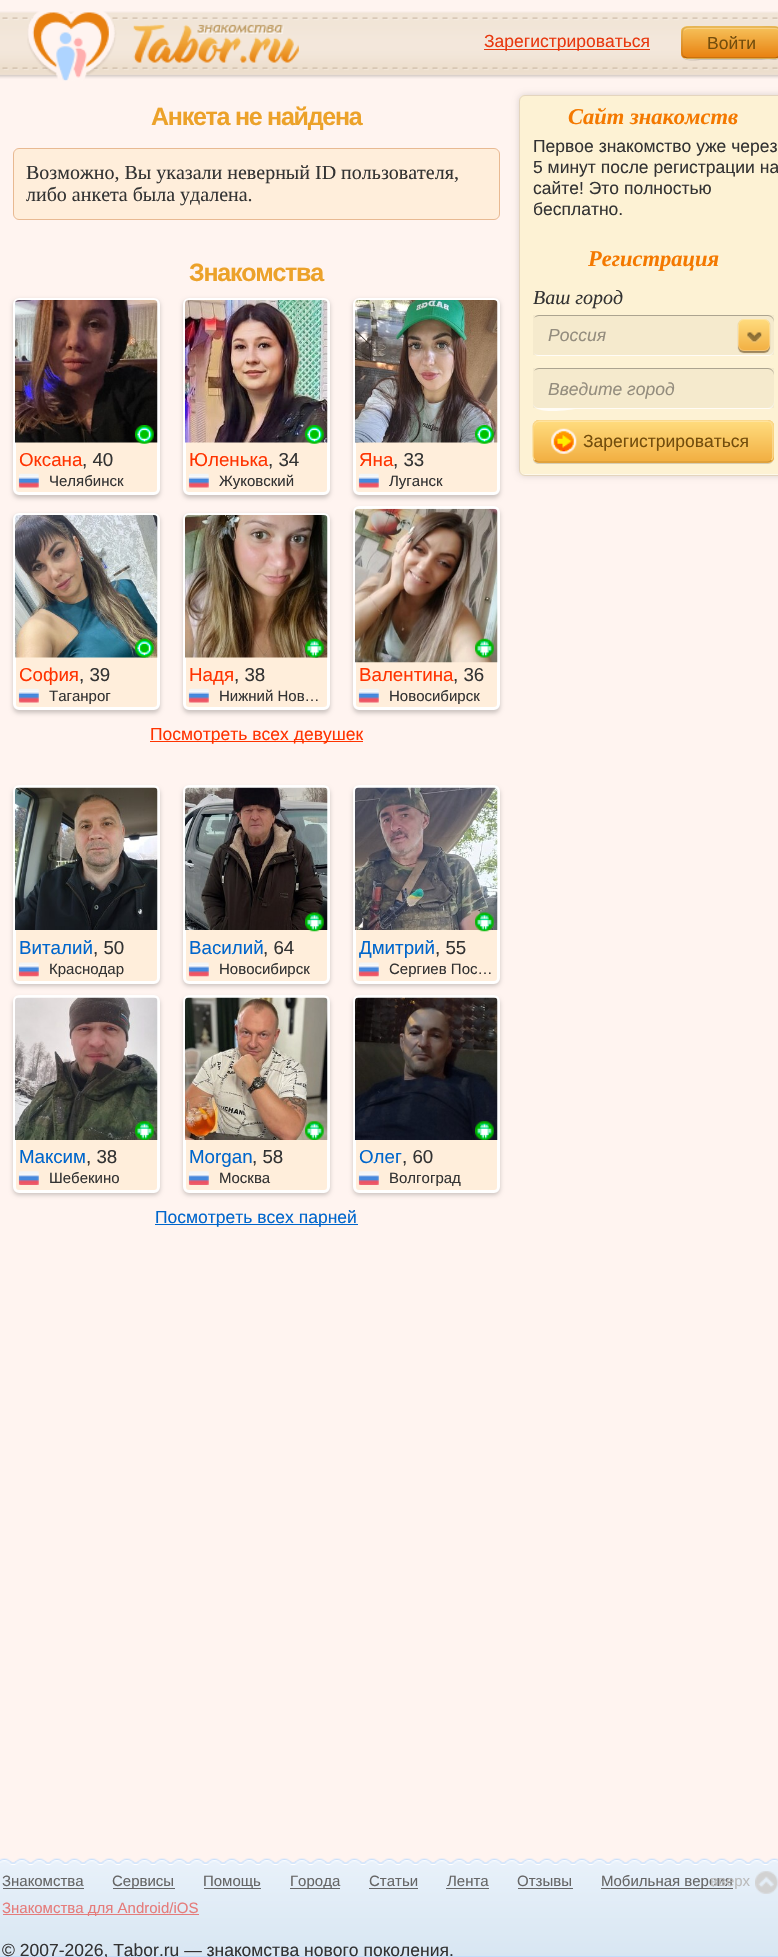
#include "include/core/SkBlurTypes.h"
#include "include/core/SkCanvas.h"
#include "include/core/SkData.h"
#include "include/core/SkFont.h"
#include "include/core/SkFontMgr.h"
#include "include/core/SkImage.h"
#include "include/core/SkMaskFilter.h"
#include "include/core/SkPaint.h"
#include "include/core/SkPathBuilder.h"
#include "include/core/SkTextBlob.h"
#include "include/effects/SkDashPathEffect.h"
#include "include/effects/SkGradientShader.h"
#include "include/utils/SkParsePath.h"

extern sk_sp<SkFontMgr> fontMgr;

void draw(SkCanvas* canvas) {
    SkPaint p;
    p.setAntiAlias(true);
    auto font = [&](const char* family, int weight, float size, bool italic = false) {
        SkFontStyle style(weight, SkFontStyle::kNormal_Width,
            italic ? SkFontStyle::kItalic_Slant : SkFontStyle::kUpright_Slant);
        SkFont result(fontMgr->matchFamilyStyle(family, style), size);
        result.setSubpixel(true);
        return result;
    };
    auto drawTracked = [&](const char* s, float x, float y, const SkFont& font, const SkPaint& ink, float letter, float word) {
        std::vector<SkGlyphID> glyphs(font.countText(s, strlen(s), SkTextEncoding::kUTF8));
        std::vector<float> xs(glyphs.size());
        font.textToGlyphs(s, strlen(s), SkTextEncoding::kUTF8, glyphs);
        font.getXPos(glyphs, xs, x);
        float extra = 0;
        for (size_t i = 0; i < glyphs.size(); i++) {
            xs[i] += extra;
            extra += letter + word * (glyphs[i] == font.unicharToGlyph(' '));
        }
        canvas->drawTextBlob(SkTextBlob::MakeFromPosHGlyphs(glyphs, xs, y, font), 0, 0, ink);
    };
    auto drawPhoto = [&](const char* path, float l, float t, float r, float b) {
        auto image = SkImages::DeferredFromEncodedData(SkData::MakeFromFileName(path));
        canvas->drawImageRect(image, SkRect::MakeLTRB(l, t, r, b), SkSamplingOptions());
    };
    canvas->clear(0xFFFFF4F0);
    drawPhoto("media/1.png", 0, 11, 778, 79);
    drawPhoto("media/2.png", 27, 11, 299, 81);
    p.setColor(0xFFE8380F);
    canvas->drawRect(SkRect::MakeLTRB(484, 49, 650, 50), p);
    auto font1 = font("Liberation Sans", 400, 17.5f);
    canvas->drawString("Зарегистрироваться", 484, 47, font1, p);
    p.setColor(0x26000000);
    canvas->drawPath(SkPathBuilder().moveTo(681, 32).lineTo(681, 55).cubicTo(683, 63, 698, 60, 702, 60).lineTo(775, 60).cubicTo(778, 60, 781, 57, 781, 54).cubicTo(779, 62, 764, 59, 760, 59).lineTo(702, 59).cubicTo(690, 59, 681, 63, 681, 49).close().detach(), p);
    p.setColor(0xFFF6C25B);
    canvas->drawRoundRect(SkRect::MakeLTRB(681, 26, 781, 59), 6, 6, p);
    canvas->save();
    canvas->clipPath(SkPathBuilder().moveTo(687, 26).lineTo(775, 26).cubicTo(778.5f, 26, 781, 28.5f, 781, 32).lineTo(781, 53).cubicTo(781, 56.5f, 778.5f, 59, 775, 59).lineTo(687, 59).cubicTo(683.5f, 59, 681, 56.5f, 681, 53).lineTo(681, 32).cubicTo(681, 28.5f, 683.5f, 26, 687, 26).close().detach(), true);
    {
        const SkColor colors[] = {0xFFF6C25B, 0xFFE8800F};
        const float stops[] = {0, 1};
        const SkPoint ends[] = {{731, 27}, {731, 58}};
        p.setShader(SkGradientShader::MakeLinear(ends, colors, stops, 2, SkTileMode::kClamp));
        p.setAlpha(255);
    }
    canvas->drawRect(SkRect::MakeLTRB(681, 28, 778, 58), p);
    canvas->restore();
    p.setShader(nullptr);
    p.setColor(0xFFF8CF81);
    canvas->drawPath(SkPathBuilder().moveTo(688, 29).lineTo(775, 29).cubicTo(778, 29, 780, 31, 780, 34).lineTo(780, 33).cubicTo(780, 30, 778, 28, 775, 28).lineTo(688, 28).cubicTo(686, 28, 684, 29, 684, 31).cubicTo(685, 30, 686, 29, 688, 29).close().detach(), p);
    p.setStyle(SkPaint::kStroke_Style);
    p.setStrokeWidth(1.2f);
    p.setColor(0x40000000);
    canvas->drawPath(SkPathBuilder().moveTo(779, 56.5f).lineTo(775.5f, 58).lineTo(687, 58).lineTo(683.5f, 56.5f).detach(), p);
    p.setColor(0x1A000000);
    canvas->drawPath(SkPathBuilder().moveTo(683.5f, 56.5f).cubicTo(681, 54, 682, 49, 682, 46).cubicTo(682, 24.5f, 679.5f, 27, 702, 27).lineTo(760.5f, 27).cubicTo(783, 27, 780.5f, 24.5f, 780.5f, 46).cubicTo(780.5f, 49, 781.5f, 54, 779, 56.5f).detach(), p);
    p.setStyle(SkPaint::kFill_Style);
    p.setColor(0xFF734D0C);
    canvas->drawString("Войти", 707, 49, font1, p);
    auto font2 = font("Liberation Sans", 700, 25);
    p.setColor(0xFFECA22A);
    drawTracked("Анкета не найдена", 151, 125, font2, p, -1.25f, 0);
    p.setColor(0xFFFFEEDB);
    canvas->drawRoundRect(SkRect::MakeLTRB(13.5f, 148.5f, 499.5f, 219.5f), 5.5f, 5.5f, p);
    p.setStyle(SkPaint::kStroke_Style);
    p.setStrokeWidth(1);
    p.setColor(0xFFE8B992);
    canvas->drawRoundRect(SkRect::MakeLTRB(13.5f, 148.5f, 499.5f, 219.5f), 5.5f, 5.5f, p);
    auto font3 = font("Liberation Serif", 400, 20);
    p.setStyle(SkPaint::kFill_Style);
    p.setColor(0xFF333333);
    canvas->drawString("Возможно, Вы указали неверный ID пользователя,", 26, 179, font3, p);
    canvas->drawString("либо анкета была удалена.", 26, 201, font3, p);
    p.setColor(0xFFECA22A);
    drawTracked("Знакомства", 189, 281, font2, p, -1.25f, 0);
    p.setColor(0x33000000);
    p.setMaskFilter(SkMaskFilter::MakeBlur(kNormal_SkBlurStyle, 2));
    canvas->drawRoundRect(SkRect::MakeLTRB(13, 300, 160, 498), 6, 6, p);
    p.setMaskFilter(nullptr);
    p.setColor(0xFFFFEEDB);
    canvas->drawRoundRect(SkRect::MakeLTRB(14.5f, 299.5f, 158.5f, 493.5f), 4.5f, 4.5f, p);
    p.setStyle(SkPaint::kStroke_Style);
    p.setStrokeWidth(3);
    p.setColor(0xFFFFFFFF);
    canvas->drawRoundRect(SkRect::MakeLTRB(14.5f, 299.5f, 158.5f, 493.5f), 4.5f, 4.5f, p);
    drawPhoto("media/3.png", 15, 300, 158, 443);
    drawPhoto("media/4.png", 135, 425, 154, 444);
    auto font4 = font("Liberation Sans", 400, 18.75f);
    p.setStyle(SkPaint::kFill_Style);
    p.setColor(0xFFFF3300);
    canvas->drawString("Оксана", 19, 466, font4, p);
    p.setColor(0xFF333333);
    canvas->drawString(", 40", 82, 466, font4, p);
    drawPhoto("media/5.png", 18, 473, 39, 488);
    auto font5 = font("Liberation Sans", 400, 15);
    canvas->drawString("Челябинск", 49, 486, font5, p);
    p.setColor(0x33000000);
    p.setMaskFilter(SkMaskFilter::MakeBlur(kNormal_SkBlurStyle, 2));
    canvas->drawRoundRect(SkRect::MakeLTRB(183, 300, 330, 498), 6, 6, p);
    p.setMaskFilter(nullptr);
    p.setColor(0xFFFFEEDB);
    canvas->drawRoundRect(SkRect::MakeLTRB(184.5f, 299.5f, 328.5f, 493.5f), 4.5f, 4.5f, p);
    p.setStyle(SkPaint::kStroke_Style);
    p.setColor(0xFFFFFFFF);
    canvas->drawRoundRect(SkRect::MakeLTRB(184.5f, 299.5f, 328.5f, 493.5f), 4.5f, 4.5f, p);
    drawPhoto("media/6.png", 185, 300, 328, 443);
    drawPhoto("media/7.png", 305, 425, 324, 444);
    p.setStyle(SkPaint::kFill_Style);
    p.setColor(0xFFFF3300);
    canvas->drawString("Юленька", 189, 466, font4, p);
    p.setColor(0xFF333333);
    canvas->drawString(", 34", 268, 466, font4, p);
    drawPhoto("media/5.png", 188, 473, 209, 488);
    canvas->drawString("Жуковский", 219, 486, font5, p);
    p.setColor(0x33000000);
    p.setMaskFilter(SkMaskFilter::MakeBlur(kNormal_SkBlurStyle, 2));
    canvas->drawRoundRect(SkRect::MakeLTRB(353, 300, 500, 498), 6, 6, p);
    p.setMaskFilter(nullptr);
    p.setColor(0xFFFFEEDB);
    canvas->drawRoundRect(SkRect::MakeLTRB(354.5f, 299.5f, 498.5f, 493.5f), 4.5f, 4.5f, p);
    p.setStyle(SkPaint::kStroke_Style);
    p.setColor(0xFFFFFFFF);
    canvas->drawRoundRect(SkRect::MakeLTRB(354.5f, 299.5f, 498.5f, 493.5f), 4.5f, 4.5f, p);
    drawPhoto("media/8.png", 355, 300, 498, 443);
    drawPhoto("media/9.png", 475, 425, 494, 444);
    p.setStyle(SkPaint::kFill_Style);
    p.setColor(0xFFFF3300);
    canvas->drawString("Яна", 359, 466, font4, p);
    p.setColor(0xFF333333);
    canvas->drawString(", 33", 393, 466, font4, p);
    drawPhoto("media/10.png", 358, 473, 379, 488);
    canvas->drawString("Луганск", 389, 486, font5, p);
    p.setColor(0x33000000);
    p.setMaskFilter(SkMaskFilter::MakeBlur(kNormal_SkBlurStyle, 2));
    canvas->drawRoundRect(SkRect::MakeLTRB(13, 515, 160, 713), 6, 6, p);
    p.setMaskFilter(nullptr);
    p.setColor(0xFFFFEEDB);
    canvas->drawRoundRect(SkRect::MakeLTRB(14.5f, 514.5f, 158.5f, 708.5f), 4.5f, 4.5f, p);
    p.setStyle(SkPaint::kStroke_Style);
    p.setColor(0xFFFFFFFF);
    canvas->drawRoundRect(SkRect::MakeLTRB(14.5f, 514.5f, 158.5f, 708.5f), 4.5f, 4.5f, p);
    drawPhoto("media/11.png", 15, 515, 158, 658);
    drawPhoto("media/12.png", 135, 638, 154, 658);
    p.setStyle(SkPaint::kFill_Style);
    p.setColor(0xFFFF3300);
    canvas->drawString("София", 19, 681, font4, p);
    p.setColor(0xFF333333);
    canvas->drawString(", 39", 79, 681, font4, p);
    drawPhoto("media/5.png", 18, 688, 39, 703);
    canvas->drawString("Таганрог", 49, 701, font5, p);
    p.setColor(0x33000000);
    p.setMaskFilter(SkMaskFilter::MakeBlur(kNormal_SkBlurStyle, 2));
    canvas->drawRoundRect(SkRect::MakeLTRB(183, 515, 330, 713), 6, 6, p);
    p.setMaskFilter(nullptr);
    p.setColor(0xFFFFEEDB);
    canvas->drawRoundRect(SkRect::MakeLTRB(184.5f, 514.5f, 328.5f, 708.5f), 4.5f, 4.5f, p);
    p.setStyle(SkPaint::kStroke_Style);
    p.setColor(0xFFFFFFFF);
    canvas->drawRoundRect(SkRect::MakeLTRB(184.5f, 514.5f, 328.5f, 708.5f), 4.5f, 4.5f, p);
    drawPhoto("media/13.png", 185, 515, 328, 658);
    drawPhoto("media/14.png", 305, 638, 324, 658);
    p.setStyle(SkPaint::kFill_Style);
    p.setColor(0xFFFF3300);
    canvas->drawString("Надя", 189, 681, font4, p);
    p.setColor(0xFF333333);
    canvas->drawString(", 38", 234, 681, font4, p);
    drawPhoto("media/5.png", 188, 688, 209, 703);
    canvas->drawString("Нижний Нов…", 219, 701, font5, p);
    p.setColor(0x33000000);
    p.setMaskFilter(SkMaskFilter::MakeBlur(kNormal_SkBlurStyle, 2));
    canvas->drawRoundRect(SkRect::MakeLTRB(353, 509, 500, 713), 6, 6, p);
    p.setMaskFilter(nullptr);
    p.setColor(0xFFFFEEDB);
    canvas->drawRoundRect(SkRect::MakeLTRB(354.5f, 507.5f, 498.5f, 708.5f), 4.5f, 4.5f, p);
    p.setStyle(SkPaint::kStroke_Style);
    p.setColor(0xFFFFFFFF);
    canvas->drawRoundRect(SkRect::MakeLTRB(354.5f, 507.5f, 498.5f, 708.5f), 4.5f, 4.5f, p);
    drawPhoto("media/15.png", 355, 508, 498, 663);
    drawPhoto("media/16.png", 475, 638, 494, 658);
    p.setStyle(SkPaint::kFill_Style);
    p.setColor(0xFFFF3300);
    canvas->drawString("Валентина", 359, 681, font4, p);
    p.setColor(0xFF333333);
    canvas->drawString(", 36", 453, 681, font4, p);
    drawPhoto("media/10.png", 358, 688, 379, 703);
    canvas->drawString("Новосибирск", 389, 701, font5, p);
    p.setColor(0xFFFF3300);
    canvas->drawRect(SkRect::MakeLTRB(150, 741, 363, 742), p);
    canvas->drawString("Посмотреть всех девушек", 150, 740, font1, p);
    p.setColor(0x33000000);
    p.setMaskFilter(SkMaskFilter::MakeBlur(kNormal_SkBlurStyle, 2));
    canvas->drawRoundRect(SkRect::MakeLTRB(13, 788, 160, 986), 6, 6, p);
    p.setMaskFilter(nullptr);
    p.setColor(0xFFFFEEDB);
    canvas->drawRoundRect(SkRect::MakeLTRB(14.5f, 786.5f, 158.5f, 982.5f), 4.5f, 4.5f, p);
    p.setStyle(SkPaint::kStroke_Style);
    p.setColor(0xFFFFFFFF);
    canvas->drawRoundRect(SkRect::MakeLTRB(14.5f, 786.5f, 158.5f, 982.5f), 4.5f, 4.5f, p);
    drawPhoto("media/17.png", 15, 787, 158, 930);
    p.setStyle(SkPaint::kFill_Style);
    p.setColor(0xFF0066CC);
    canvas->drawString("Виталий", 19, 954, font4, p);
    p.setColor(0xFF333333);
    canvas->drawString(", 50", 93, 954, font4, p);
    drawPhoto("media/18.png", 18, 962, 39, 977);
    canvas->drawString("Краснодар", 49, 974, font5, p);
    p.setColor(0x33000000);
    p.setMaskFilter(SkMaskFilter::MakeBlur(kNormal_SkBlurStyle, 2));
    canvas->drawRoundRect(SkRect::MakeLTRB(183, 788, 330, 986), 6, 6, p);
    p.setMaskFilter(nullptr);
    p.setColor(0xFFFFEEDB);
    canvas->drawRoundRect(SkRect::MakeLTRB(184.5f, 786.5f, 328.5f, 982.5f), 4.5f, 4.5f, p);
    p.setStyle(SkPaint::kStroke_Style);
    p.setColor(0xFFFFFFFF);
    canvas->drawRoundRect(SkRect::MakeLTRB(184.5f, 786.5f, 328.5f, 982.5f), 4.5f, 4.5f, p);
    drawPhoto("media/19.png", 185, 787, 328, 930);
    drawPhoto("media/20.png", 305, 912, 324, 932);
    p.setStyle(SkPaint::kFill_Style);
    p.setColor(0xFF0066CC);
    canvas->drawString("Василий", 189, 954, font4, p);
    p.setColor(0xFF333333);
    canvas->drawString(", 64", 263, 954, font4, p);
    drawPhoto("media/18.png", 188, 962, 209, 977);
    canvas->drawString("Новосибирск", 219, 974, font5, p);
    p.setColor(0x33000000);
    p.setMaskFilter(SkMaskFilter::MakeBlur(kNormal_SkBlurStyle, 2));
    canvas->drawRoundRect(SkRect::MakeLTRB(353, 788, 500, 986), 6, 6, p);
    p.setMaskFilter(nullptr);
    p.setColor(0xFFFFEEDB);
    canvas->drawRoundRect(SkRect::MakeLTRB(354.5f, 786.5f, 498.5f, 982.5f), 4.5f, 4.5f, p);
    p.setStyle(SkPaint::kStroke_Style);
    p.setColor(0xFFFFFFFF);
    canvas->drawRoundRect(SkRect::MakeLTRB(354.5f, 786.5f, 498.5f, 982.5f), 4.5f, 4.5f, p);
    drawPhoto("media/21.png", 355, 787, 498, 930);
    drawPhoto("media/22.png", 475, 912, 494, 932);
    p.setStyle(SkPaint::kFill_Style);
    p.setColor(0xFF0066CC);
    canvas->drawString("Дмитрий", 359, 954, font4, p);
    p.setColor(0xFF333333);
    canvas->drawString(", 55", 435, 954, font4, p);
    drawPhoto("media/23.png", 358, 962, 379, 977);
    canvas->drawString("Сергиев Пос…", 389, 974, font5, p);
    p.setColor(0x33000000);
    p.setMaskFilter(SkMaskFilter::MakeBlur(kNormal_SkBlurStyle, 2));
    canvas->drawRoundRect(SkRect::MakeLTRB(13, 998, 160, 1195), 6, 6, p);
    p.setMaskFilter(nullptr);
    p.setColor(0xFFFFEEDB);
    canvas->drawRoundRect(SkRect::MakeLTRB(14.5f, 996.5f, 158.5f, 1191.5f), 4.5f, 4.5f, p);
    p.setStyle(SkPaint::kStroke_Style);
    p.setColor(0xFFFFFFFF);
    canvas->drawRoundRect(SkRect::MakeLTRB(14.5f, 996.5f, 158.5f, 1191.5f), 4.5f, 4.5f, p);
    drawPhoto("media/24.png", 15, 997, 158, 1140);
    drawPhoto("media/25.png", 135, 1121, 154, 1140);
    p.setStyle(SkPaint::kFill_Style);
    p.setColor(0xFF0066CC);
    canvas->drawString("Максим", 19, 1163, font4, p);
    p.setColor(0xFF333333);
    canvas->drawString(", 38", 86, 1163, font4, p);
    drawPhoto("media/26.png", 18, 1171, 39, 1185);
    canvas->drawString("Шебекино", 49, 1183, font5, p);
    p.setColor(0x33000000);
    p.setMaskFilter(SkMaskFilter::MakeBlur(kNormal_SkBlurStyle, 2));
    canvas->drawRoundRect(SkRect::MakeLTRB(183, 998, 330, 1195), 6, 6, p);
    p.setMaskFilter(nullptr);
    p.setColor(0xFFFFEEDB);
    canvas->drawRoundRect(SkRect::MakeLTRB(184.5f, 996.5f, 328.5f, 1191.5f), 4.5f, 4.5f, p);
    p.setStyle(SkPaint::kStroke_Style);
    p.setColor(0xFFFFFFFF);
    canvas->drawRoundRect(SkRect::MakeLTRB(184.5f, 996.5f, 328.5f, 1191.5f), 4.5f, 4.5f, p);
    drawPhoto("media/27.png", 185, 997, 328, 1140);
    drawPhoto("media/28.png", 305, 1121, 324, 1140);
    p.setStyle(SkPaint::kFill_Style);
    p.setColor(0xFF0066CC);
    canvas->drawString("Morgan", 189, 1163, font4, p);
    p.setColor(0xFF333333);
    canvas->drawString(", 58", 252, 1163, font4, p);
    drawPhoto("media/26.png", 188, 1171, 209, 1185);
    canvas->drawString("Москва", 219, 1183, font5, p);
    p.setColor(0x33000000);
    p.setMaskFilter(SkMaskFilter::MakeBlur(kNormal_SkBlurStyle, 2));
    canvas->drawRoundRect(SkRect::MakeLTRB(353, 998, 500, 1195), 6, 6, p);
    p.setMaskFilter(nullptr);
    p.setColor(0xFFFFEEDB);
    canvas->drawRoundRect(SkRect::MakeLTRB(354.5f, 996.5f, 498.5f, 1191.5f), 4.5f, 4.5f, p);
    p.setStyle(SkPaint::kStroke_Style);
    p.setColor(0xFFFFFFFF);
    canvas->drawRoundRect(SkRect::MakeLTRB(354.5f, 996.5f, 498.5f, 1191.5f), 4.5f, 4.5f, p);
    drawPhoto("media/29.png", 355, 997, 498, 1140);
    drawPhoto("media/30.png", 475, 1121, 494, 1140);
    p.setStyle(SkPaint::kFill_Style);
    p.setColor(0xFF0066CC);
    canvas->drawString("Олег", 359, 1163, font4, p);
    p.setColor(0xFF333333);
    canvas->drawString(", 60", 402, 1163, font4, p);
    drawPhoto("media/31.png", 358, 1171, 379, 1185);
    canvas->drawString("Волгоград", 389, 1183, font5, p);
    p.setColor(0xFF0066CC);
    canvas->drawRect(SkRect::MakeLTRB(155, 1224, 358, 1225), p);
    canvas->drawString("Посмотреть всех парней", 155, 1223, font1, p);
    p.setColor(0x26000000);
    p.setMaskFilter(SkMaskFilter::MakeBlur(kNormal_SkBlurStyle, 3));
    canvas->drawRoundRect(SkRect::MakeLTRB(519, 95, 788, 476), 6, 6, p);
    p.setMaskFilter(nullptr);
    p.setColor(0xFFFDF2D4);
    canvas->drawRoundRect(SkRect::MakeLTRB(519, 95, 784, 476), 6, 6, p);
    p.setColor(0xFFFEF9EA);
    canvas->drawPath(SkPathBuilder().moveTo(520, 469).cubicTo(520, 472, 522, 475, 525, 475).lineTo(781, 475).cubicTo(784, 475, 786, 472, 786, 469).cubicTo(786, 472, 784, 474, 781, 474).lineTo(525, 474).cubicTo(522, 474, 520, 472, 520, 469).close().detach(), p);
    p.setStyle(SkPaint::kStroke_Style);
    p.setStrokeWidth(1);
    p.setColor(0xFFE4D5BE);
    canvas->drawRoundRect(SkRect::MakeLTRB(519.5f, 95.5f, 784.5f, 475.5f), 5.5f, 5.5f, p);
    auto font6 = font("Liberation Serif", 700, 22.5f, true);
    p.setStyle(SkPaint::kFill_Style);
    p.setColor(0xFFF47900);
    canvas->drawString("Сайт знакомств", 568, 124, font6, p);
    p.setColor(0xFF333333);
    {
        const struct { const char* s; float x, y; } items[] = {
            {"Первое знакомство уже через", 533, 152},
            {"5 минут после регистрации на", 533, 173},
            {"сайте! Это полностью", 533, 194},
            {"бесплатно.", 533, 215},
        };
        for (auto [s, x, y] : items) {
            canvas->drawString(s, x, y, font1, p);
        }
    }
    p.setColor(0xFFF47900);
    canvas->drawString("Регистрация", 588, 266, font6, p);
    auto font7 = font("Liberation Serif", 400, 20, true);
    p.setColor(0xFF333333);
    canvas->drawString("Ваш город", 533, 304, font7, p);
    p.setColor(0xFFFFFCF6);
    canvas->drawPath(SkPathBuilder().moveTo(533, 352).cubicTo(534, 354, 536, 356, 539, 356).lineTo(768, 356).cubicTo(771, 356, 774, 353, 774, 350).lineTo(774, 322).lineTo(774, 320).lineTo(774, 349).cubicTo(774, 352, 771, 355, 768, 355).lineTo(539, 355).cubicTo(536, 355, 534, 354, 533, 352).close().detach(), p);
    p.setColor(0x08000000);
    canvas->drawRect(SkRect::MakeLTRB(533, 315, 774, 355), p);
    p.setColor(0xFFACA490);
    canvas->drawPath(SkPathBuilder().moveTo(539, 316).lineTo(768, 316).cubicTo(771, 316, 774, 319, 774, 322).lineTo(774, 321).cubicTo(774, 318, 771, 315, 768, 315).lineTo(539, 315).cubicTo(537, 315, 535, 316, 534, 318).cubicTo(535, 317, 537, 316, 539, 316).close().detach(), p);
    auto font8 = font("Liberation Sans", 400, 17.5f, true);
    p.setColor(0xFF948D7E);
    canvas->drawString("Россия", 548, 341, font8, p);
    p.setColor(0xBF7D6133);
    p.setMaskFilter(SkMaskFilter::MakeBlur(kNormal_SkBlurStyle, 0.5f));
    canvas->drawRoundRect(SkRect::MakeLTRB(738, 320, 770, 353), 6, 6, p);
    p.setMaskFilter(nullptr);
    {
        const SkColor colors[] = {0xFFFFDC7E, 0xFFF2AF42};
        const float stops[] = {0, 1};
        const SkPoint ends[] = {{754, 319}, {754, 351}};
        p.setShader(SkGradientShader::MakeLinear(ends, colors, stops, 2, SkTileMode::kClamp));
        p.setAlpha(255);
    }
    canvas->drawRoundRect(SkRect::MakeLTRB(738, 319, 770, 351), 6, 6, p);
    p.setStyle(SkPaint::kStroke_Style);
    p.setShader(nullptr);
    p.setColor(0x40FFFFFF);
    canvas->drawRoundRect(SkRect::MakeLTRB(738.5f, 319.5f, 769.5f, 350.5f), 5.5f, 5.5f, p);
    drawPhoto("media/32.png", 747, 332, 762, 343);
    p.setStyle(SkPaint::kFill_Style);
    p.setColor(0xFFFFFCF6);
    canvas->drawPath(SkPathBuilder().moveTo(533, 404).cubicTo(535, 416, 573, 409, 577, 409).lineTo(768, 409).cubicTo(776, 409, 774, 399, 774, 394).lineTo(774, 373).lineTo(774, 401).cubicTo(774, 405, 771, 408, 768, 408).lineTo(539, 408).cubicTo(536, 408, 534, 406, 533, 404).close().detach(), p);
    p.setColor(0x08000000);
    canvas->drawRect(SkRect::MakeLTRB(533, 368, 774, 408), p);
    p.setColor(0xFFACA490);
    canvas->drawPath(SkPathBuilder().moveTo(539, 369).lineTo(768, 369).cubicTo(771, 369, 774, 372, 774, 375).lineTo(774, 374).cubicTo(774, 371, 771, 368, 768, 368).lineTo(539, 368).cubicTo(537, 368, 535, 369, 534, 371).cubicTo(535, 370, 537, 369, 539, 369).close().detach(), p);
    p.setColor(0xFF948D7E);
    canvas->drawString("Введите город", 548, 395, font8, p);
    p.setColor(0xFFD7CEB4);
    canvas->drawPath(SkPathBuilder().moveTo(533, 459).cubicTo(533, 462, 536, 464, 539, 464).lineTo(768, 464).cubicTo(771, 464, 774, 461, 774, 458).lineTo(774, 427).lineTo(774, 425).lineTo(774, 456).cubicTo(774, 460, 771, 462, 768, 462).lineTo(539, 462).cubicTo(536, 462, 534, 461, 533, 459).close().detach(), p);
    p.setColor(0xFFF2AF42);
    canvas->drawRoundRect(SkRect::MakeLTRB(533, 420, 774, 463), 6, 6, p);
    canvas->save();
    canvas->clipPath(SkPathBuilder().moveTo(539, 420).lineTo(768, 420).cubicTo(771.5f, 420, 774, 422.5f, 774, 426).lineTo(774, 457).cubicTo(774, 460.5f, 771.5f, 463, 768, 463).lineTo(539, 463).cubicTo(535.5f, 463, 533, 460.5f, 533, 457).lineTo(533, 426).cubicTo(533, 422.5f, 535.5f, 420, 539, 420).close().detach(), true);
    {
        const SkColor colors[] = {0xFFFFDC7E, 0xFFF2AF42};
        const float stops[] = {0, 1};
        const SkPoint ends[] = {{653, 421}, {653, 461}};
        p.setShader(SkGradientShader::MakeLinear(ends, colors, stops, 2, SkTileMode::kClamp));
        p.setAlpha(255);
    }
    canvas->drawRect(SkRect::MakeLTRB(533, 421, 774, 461), p);
    canvas->restore();
    p.setShader(nullptr);
    p.setColor(0x40FFFFFF);
    canvas->drawPath(SkPathBuilder().moveTo(539, 422).lineTo(768, 422).cubicTo(774, 422, 772, 436, 772, 438).lineTo(772, 459).cubicTo(773, 458, 773, 457, 773, 456).lineTo(773, 426).cubicTo(773, 423, 771, 421, 768, 421).lineTo(539, 421).cubicTo(536, 421, 534, 423, 534, 426).lineTo(534, 428).cubicTo(534, 425, 536, 422, 539, 422).close().detach(), p);
    p.setStyle(SkPaint::kStroke_Style);
    p.setStrokeWidth(1.2f);
    p.setColor(0x26000000);
    canvas->drawPath(SkPathBuilder().moveTo(771.5f, 460).cubicTo(770.5f, 461.5f, 769, 462, 767.5f, 462).lineTo(539, 462).cubicTo(537.5f, 462, 536, 461.5f, 535, 460).detach(), p);
    p.setColor(0xFFFBD98F);
    canvas->drawPath(SkPathBuilder().moveTo(535, 460).cubicTo(533.5f, 459, 533, 457.5f, 533, 456).lineTo(533, 426).cubicTo(533, 425, 533.5f, 423.5f, 535, 422.5f).cubicTo(536, 421, 537.5f, 420.5f, 539, 420.5f).lineTo(767.5f, 420.5f).cubicTo(769, 420.5f, 770.5f, 421, 771.5f, 422.5f).cubicTo(772.5f, 423.5f, 773, 425, 773, 426).lineTo(773, 456).cubicTo(773, 457.5f, 772.5f, 459, 771.5f, 460).detach(), p);
    drawPhoto("media/33.png", 551, 428, 577, 454);
    p.setStyle(SkPaint::kFill_Style);
    p.setColor(0xFF734D0C);
    canvas->drawString("Зарегистрироваться", 583, 447, font1, p);
    {
        const SkColor colors[] = {0xFFE8F1FA, 0xFFD8E6F2};
        const float stops[] = {0, 1};
        const SkPoint ends[] = {{389, 1863}, {389, 1956}};
        p.setShader(SkGradientShader::MakeLinear(ends, colors, stops, 2, SkTileMode::kClamp));
        p.setAlpha(255);
    }
    canvas->drawRect(SkRect::MakeLTRB(0, 1865, 778, 1956), p);
    p.setShader(nullptr);
    p.setColor(0xFFC2DCFB);
    canvas->drawRect(SkRect::MakeLTRB(0, 1956, 778, 1957), p);
    drawPhoto("media/34.png", 0, 1858, 778, 1865);
    p.setColor(0xFF666666);
    canvas->drawString("Знакомства", 2, 1886, font5, p);
    canvas->drawRect(SkRect::MakeLTRB(3, 1888, 84, 1889), p);
    canvas->drawRect(SkRect::MakeLTRB(113, 1888, 175, 1889), p);
    canvas->drawString("Сервисы", 112, 1886, font5, p);
    canvas->drawRect(SkRect::MakeLTRB(204, 1888, 261, 1889), p);
    canvas->drawString("Помощь", 203, 1886, font5, p);
    canvas->drawRect(SkRect::MakeLTRB(290, 1888, 340, 1889), p);
    canvas->drawString("Города", 290, 1886, font5, p);
    canvas->drawString("Статьи", 369, 1886, font5, p);
    canvas->drawRect(SkRect::MakeLTRB(369, 1888, 418, 1889), p);
    canvas->drawString("Лента", 447, 1886, font5, p);
    canvas->drawRect(SkRect::MakeLTRB(446, 1888, 489, 1889), p);
    canvas->drawString("Отзывы", 517, 1886, font5, p);
    canvas->drawRect(SkRect::MakeLTRB(518, 1888, 573, 1889), p);
    canvas->drawRect(SkRect::MakeLTRB(601, 1888, 733, 1889), p);
    canvas->drawString("Мобильная версия", 601, 1886, font5, p);
    p.setColor(0xFFE57C7B);
    canvas->drawRect(SkRect::MakeLTRB(3, 1914, 199, 1915), p);
    canvas->drawString("Знакомства для Android/iOS", 2, 1913, font5, p);
    p.setColor(0xFFBBBBBB);
    canvas->drawString("вверх", 710, 1886, font5, p);
    drawPhoto("media/35.png", 755, 1871, 778, 1894);
    p.setColor(0xFF333333);
    canvas->drawString("© 2007-2026, Tabor.ru — знакомства нового поколения.", 2, 1956, font1, p);
}
